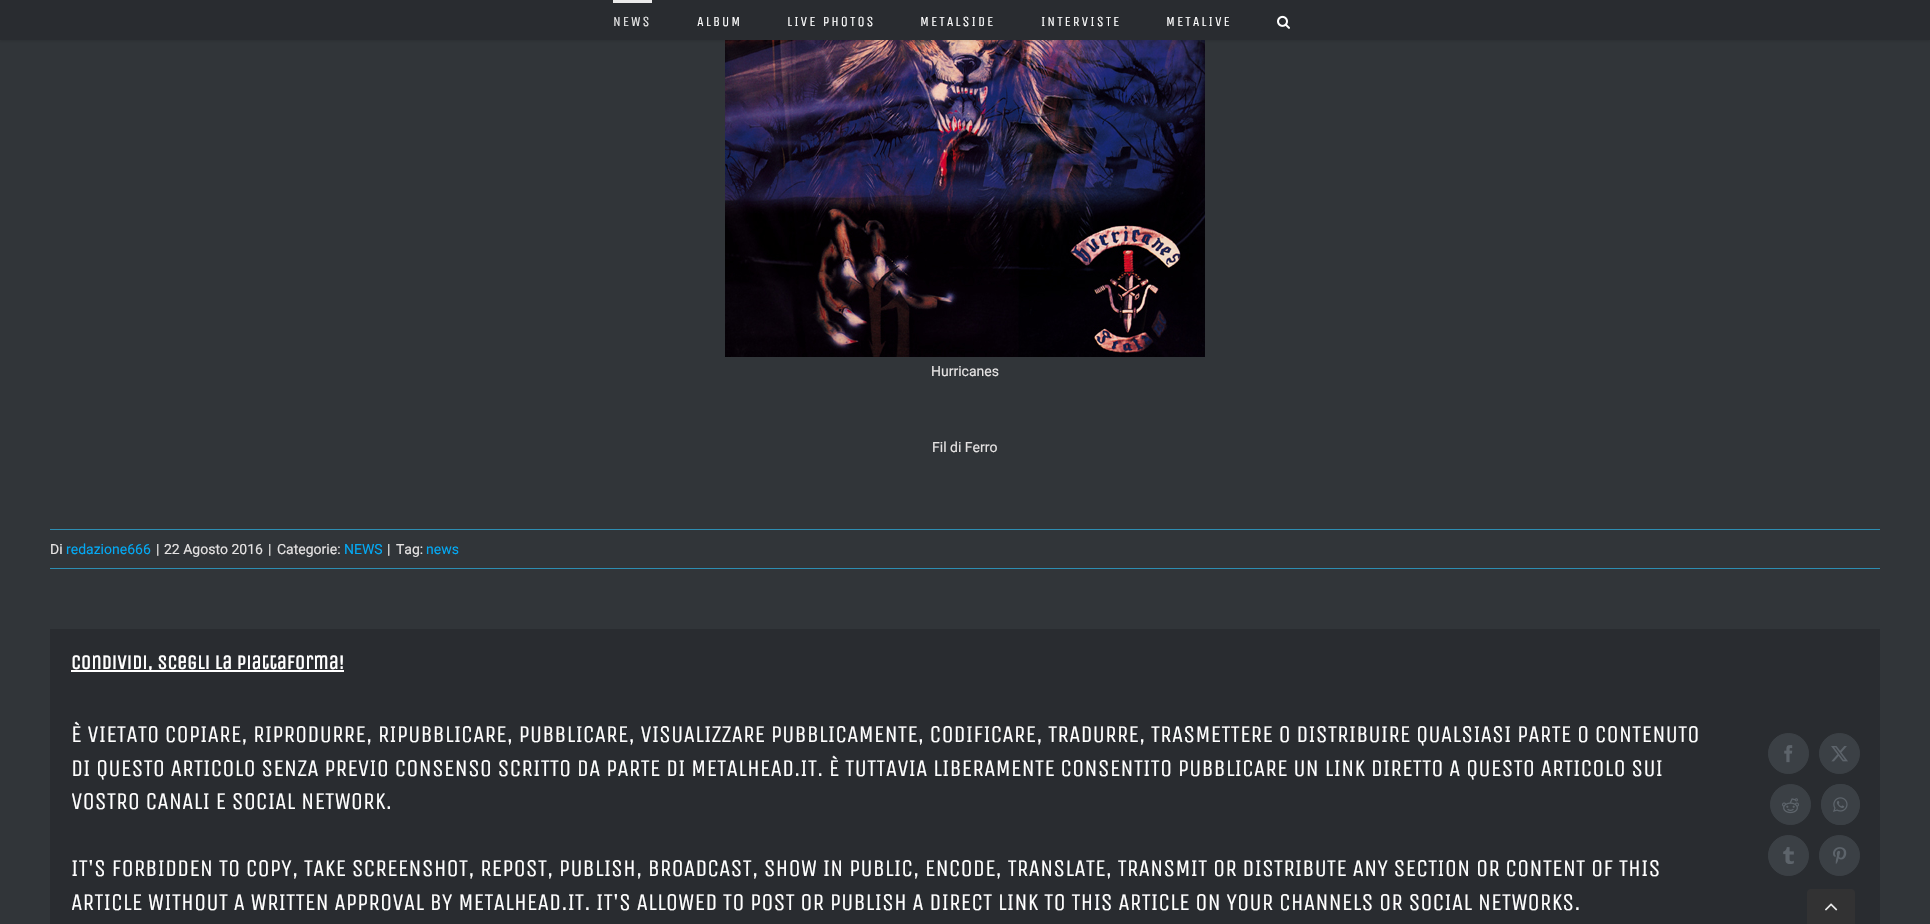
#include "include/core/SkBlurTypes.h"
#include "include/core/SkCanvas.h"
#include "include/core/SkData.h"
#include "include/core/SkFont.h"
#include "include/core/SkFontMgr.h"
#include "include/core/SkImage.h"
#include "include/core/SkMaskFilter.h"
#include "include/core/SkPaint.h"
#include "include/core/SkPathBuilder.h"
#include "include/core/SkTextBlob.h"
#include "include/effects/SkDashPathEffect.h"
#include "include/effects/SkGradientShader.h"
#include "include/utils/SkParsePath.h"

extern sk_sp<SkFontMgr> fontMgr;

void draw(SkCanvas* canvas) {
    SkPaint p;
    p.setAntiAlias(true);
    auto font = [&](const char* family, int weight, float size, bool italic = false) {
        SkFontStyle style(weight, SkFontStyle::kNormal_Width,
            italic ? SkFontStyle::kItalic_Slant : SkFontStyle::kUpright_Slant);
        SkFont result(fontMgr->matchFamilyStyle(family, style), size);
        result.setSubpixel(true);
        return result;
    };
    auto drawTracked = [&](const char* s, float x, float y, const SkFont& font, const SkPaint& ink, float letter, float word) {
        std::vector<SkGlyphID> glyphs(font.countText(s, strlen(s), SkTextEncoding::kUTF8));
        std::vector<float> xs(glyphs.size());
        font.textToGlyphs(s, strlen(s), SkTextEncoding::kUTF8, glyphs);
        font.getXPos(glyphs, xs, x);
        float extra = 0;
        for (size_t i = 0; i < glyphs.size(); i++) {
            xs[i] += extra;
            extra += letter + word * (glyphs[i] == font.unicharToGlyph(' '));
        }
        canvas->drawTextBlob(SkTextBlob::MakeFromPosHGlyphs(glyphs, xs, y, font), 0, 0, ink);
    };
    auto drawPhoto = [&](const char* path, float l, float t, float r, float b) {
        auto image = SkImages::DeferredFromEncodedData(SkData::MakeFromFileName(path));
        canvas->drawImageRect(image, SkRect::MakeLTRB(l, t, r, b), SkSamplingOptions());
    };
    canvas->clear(0xFF313539);
    drawPhoto("media/2.png", 725, 40, 1205, 357);
    p.setColor(0x1F000000);
    p.setMaskFilter(SkMaskFilter::MakeBlur(kNormal_SkBlurStyle, 1.5f));
    canvas->drawRect(SkRect::MakeLTRB(0, 1, 1930, 41), p);
    p.setMaskFilter(nullptr);
    p.setColor(0xFF292C30);
    canvas->drawRect(SkRect::MakeLTRB(0, 0, 1930, 40), p);
    p.setColor(0xFFEAEAEA);
    canvas->drawRect(SkRect::MakeLTRB(613, 0, 652, 3), p);
    auto font1 = font("Unica One", 400, 14);
    drawTracked("NEWS", 613, 26, font1, p, 2, 0);
    p.setColor(0xFFFFFFFF);
    {
        const struct { const char* s; float x, y; } items[] = {
            {"ALBUM", 697, 26},
            {"LIVE PHOTOS", 787, 26},
            {"METALSIDE", 920, 26},
            {"INTERVISTE", 1041, 26},
            {"METALIVE", 1166, 26},
        };
        for (auto [s, x, y] : items) {
            drawTracked(s, x, y, font1, p, 2, 0);
        }
    }
    drawPhoto("media/1.png", 1277, 15, 1290, 29);
    auto font2 = font("Roboto", 400, 14);
    p.setColor(0xFFE5E3E3);
    canvas->drawString("Hurricanes", 931, 376, font2, p);
    canvas->drawString("Fil di Ferro", 932, 452, font2, p);
    p.setColor(0xFF2D8DB2);
    canvas->drawRect(SkRect::MakeLTRB(50, 529, 1880, 530), p);
    canvas->drawRect(SkRect::MakeLTRB(50, 568, 1880, 569), p);
    p.setColor(0xFFE5E3E3);
    canvas->drawString("Di", 50, 554, font2, p);
    p.setColor(0xFF03A9F4);
    canvas->drawString("redazione666", 66, 554, font2, p);
    p.setColor(0xFFE5E3E3);
    {
        const struct { const char* s; float x, y; } items[] = {
            {"|", 156, 554},
            {"22 Agosto 2016", 164, 554},
            {"|", 268, 554},
            {"Categorie:", 277, 554},
        };
        for (auto [s, x, y] : items) {
            canvas->drawString(s, x, y, font2, p);
        }
    }
    p.setColor(0xFF03A9F4);
    canvas->drawString("NEWS", 344, 554, font2, p);
    p.setColor(0xFFE5E3E3);
    canvas->drawString("|", 387, 554, font2, p);
    canvas->drawString("Tag:", 396, 554, font2, p);
    p.setColor(0xFF03A9F4);
    canvas->drawString("news", 426, 554, font2, p);
    p.setColor(0xFF292C30);
    canvas->drawRect(SkRect::MakeLTRB(50, 629, 1880, 924), p);
    p.setColor(0xFFFFFFFF);
    canvas->drawRect(SkRect::MakeLTRB(71, 670, 344, 672), p);
    auto font3 = font("Unica One", 700, 20);
    canvas->drawString("Condividi, Scegli la piattaforma!", 71, 669, font3, p);
    auto font4 = font("Unica One", 400, 24);
    {
        const struct { const char* s; float x, y; } items[] = {
            {"È VIETATO COPIARE, RIPRODURRE, RIPUBBLICARE, PUBBLICARE, VISUALIZZARE PUBBLICAMENTE, CODIFICARE, TRADURRE, TRASMETTERE O DISTRIBUIRE QUALSIASI PARTE O CONTENUTO", 71, 742},
            {"DI QUESTO ARTICOLO SENZA PREVIO CONSENSO SCRITTO DA PARTE DI METALHEAD.IT. È TUTTAVIA LIBERAMENTE CONSENTITO PUBBLICARE UN LINK DIRETTO A QUESTO ARTICOLO SUI", 71, 776},
            {"VOSTRO CANALI E SOCIAL NETWORK.", 71, 809},
            {"IT'S FORBIDDEN TO COPY, TAKE SCREENSHOT, REPOST, PUBLISH, BROADCAST, SHOW IN PUBLIC, ENCODE, TRANSLATE, TRANSMIT OR DISTRIBUTE ANY SECTION OR CONTENT OF THIS", 71, 876},
            {"ARTICLE WITHOUT A WRITTEN APPROVAL BY METALHEAD.IT. IT'S ALLOWED TO POST OR PUBLISH A DIRECT LINK TO THIS ARTICLE ON YOUR CHANNELS OR SOCIAL NETWORKS.", 71, 910},
        };
        for (auto [s, x, y] : items) {
            canvas->drawString(s, x, y, font4, p);
        }
    }
    p.setColor(0xFF3B4045);
    canvas->drawCircle(1788.5f, 753.5f, 20, p);
    p.setStyle(SkPaint::kStroke_Style);
    p.setStrokeWidth(1);
    canvas->drawCircle(1788.5f, 753.5f, 20, p);
    drawPhoto("media/3.png", 1784, 745, 1793, 763);
    p.setStyle(SkPaint::kFill_Style);
    canvas->drawCircle(1839.5f, 753.5f, 20, p);
    p.setStyle(SkPaint::kStroke_Style);
    canvas->drawCircle(1839.5f, 753.5f, 20, p);
    drawPhoto("media/4.png", 1831, 746, 1848, 762);
    p.setStyle(SkPaint::kFill_Style);
    canvas->drawCircle(1790.5f, 804.5f, 20, p);
    p.setStyle(SkPaint::kStroke_Style);
    canvas->drawCircle(1790.5f, 804.5f, 20, p);
    drawPhoto("media/5.png", 1782, 798, 1799, 814);
    p.setStyle(SkPaint::kFill_Style);
    canvas->drawOval(SkRect::MakeLTRB(1821, 784, 1860, 825), p);
    p.setStyle(SkPaint::kStroke_Style);
    canvas->drawPath(SkPathBuilder().moveTo(1840.5f, 784.5f).cubicTo(1865.5f, 784.5f, 1865.5f, 824.5f, 1840.5f, 824.5f).cubicTo(1815.5f, 824.5f, 1815.5f, 784.5f, 1840.5f, 784.5f).close().detach(), p);
    drawPhoto("media/6.png", 1833, 797, 1848, 812);
    p.setStyle(SkPaint::kFill_Style);
    canvas->drawCircle(1788.5f, 855.5f, 20, p);
    p.setStyle(SkPaint::kStroke_Style);
    canvas->drawCircle(1788.5f, 855.5f, 20, p);
    drawPhoto("media/7.png", 1783, 847, 1794, 864);
    p.setStyle(SkPaint::kFill_Style);
    canvas->drawCircle(1839.5f, 855.5f, 20, p);
    p.setStyle(SkPaint::kStroke_Style);
    canvas->drawCircle(1839.5f, 855.5f, 20, p);
    drawPhoto("media/8.png", 1833, 847, 1847, 864);
    p.setStyle(SkPaint::kFill_Style);
    p.setColor(0xFF323233);
    canvas->drawPath(SkPathBuilder().moveTo(1811, 889).lineTo(1851, 889).cubicTo(1853, 889, 1855, 891, 1855, 893).lineTo(1855, 924).lineTo(1807, 924).lineTo(1807, 893).cubicTo(1807, 891, 1809, 889, 1811, 889).close().detach(), p);
    drawPhoto("media/9.png", 1825, 903, 1838, 911);
}
